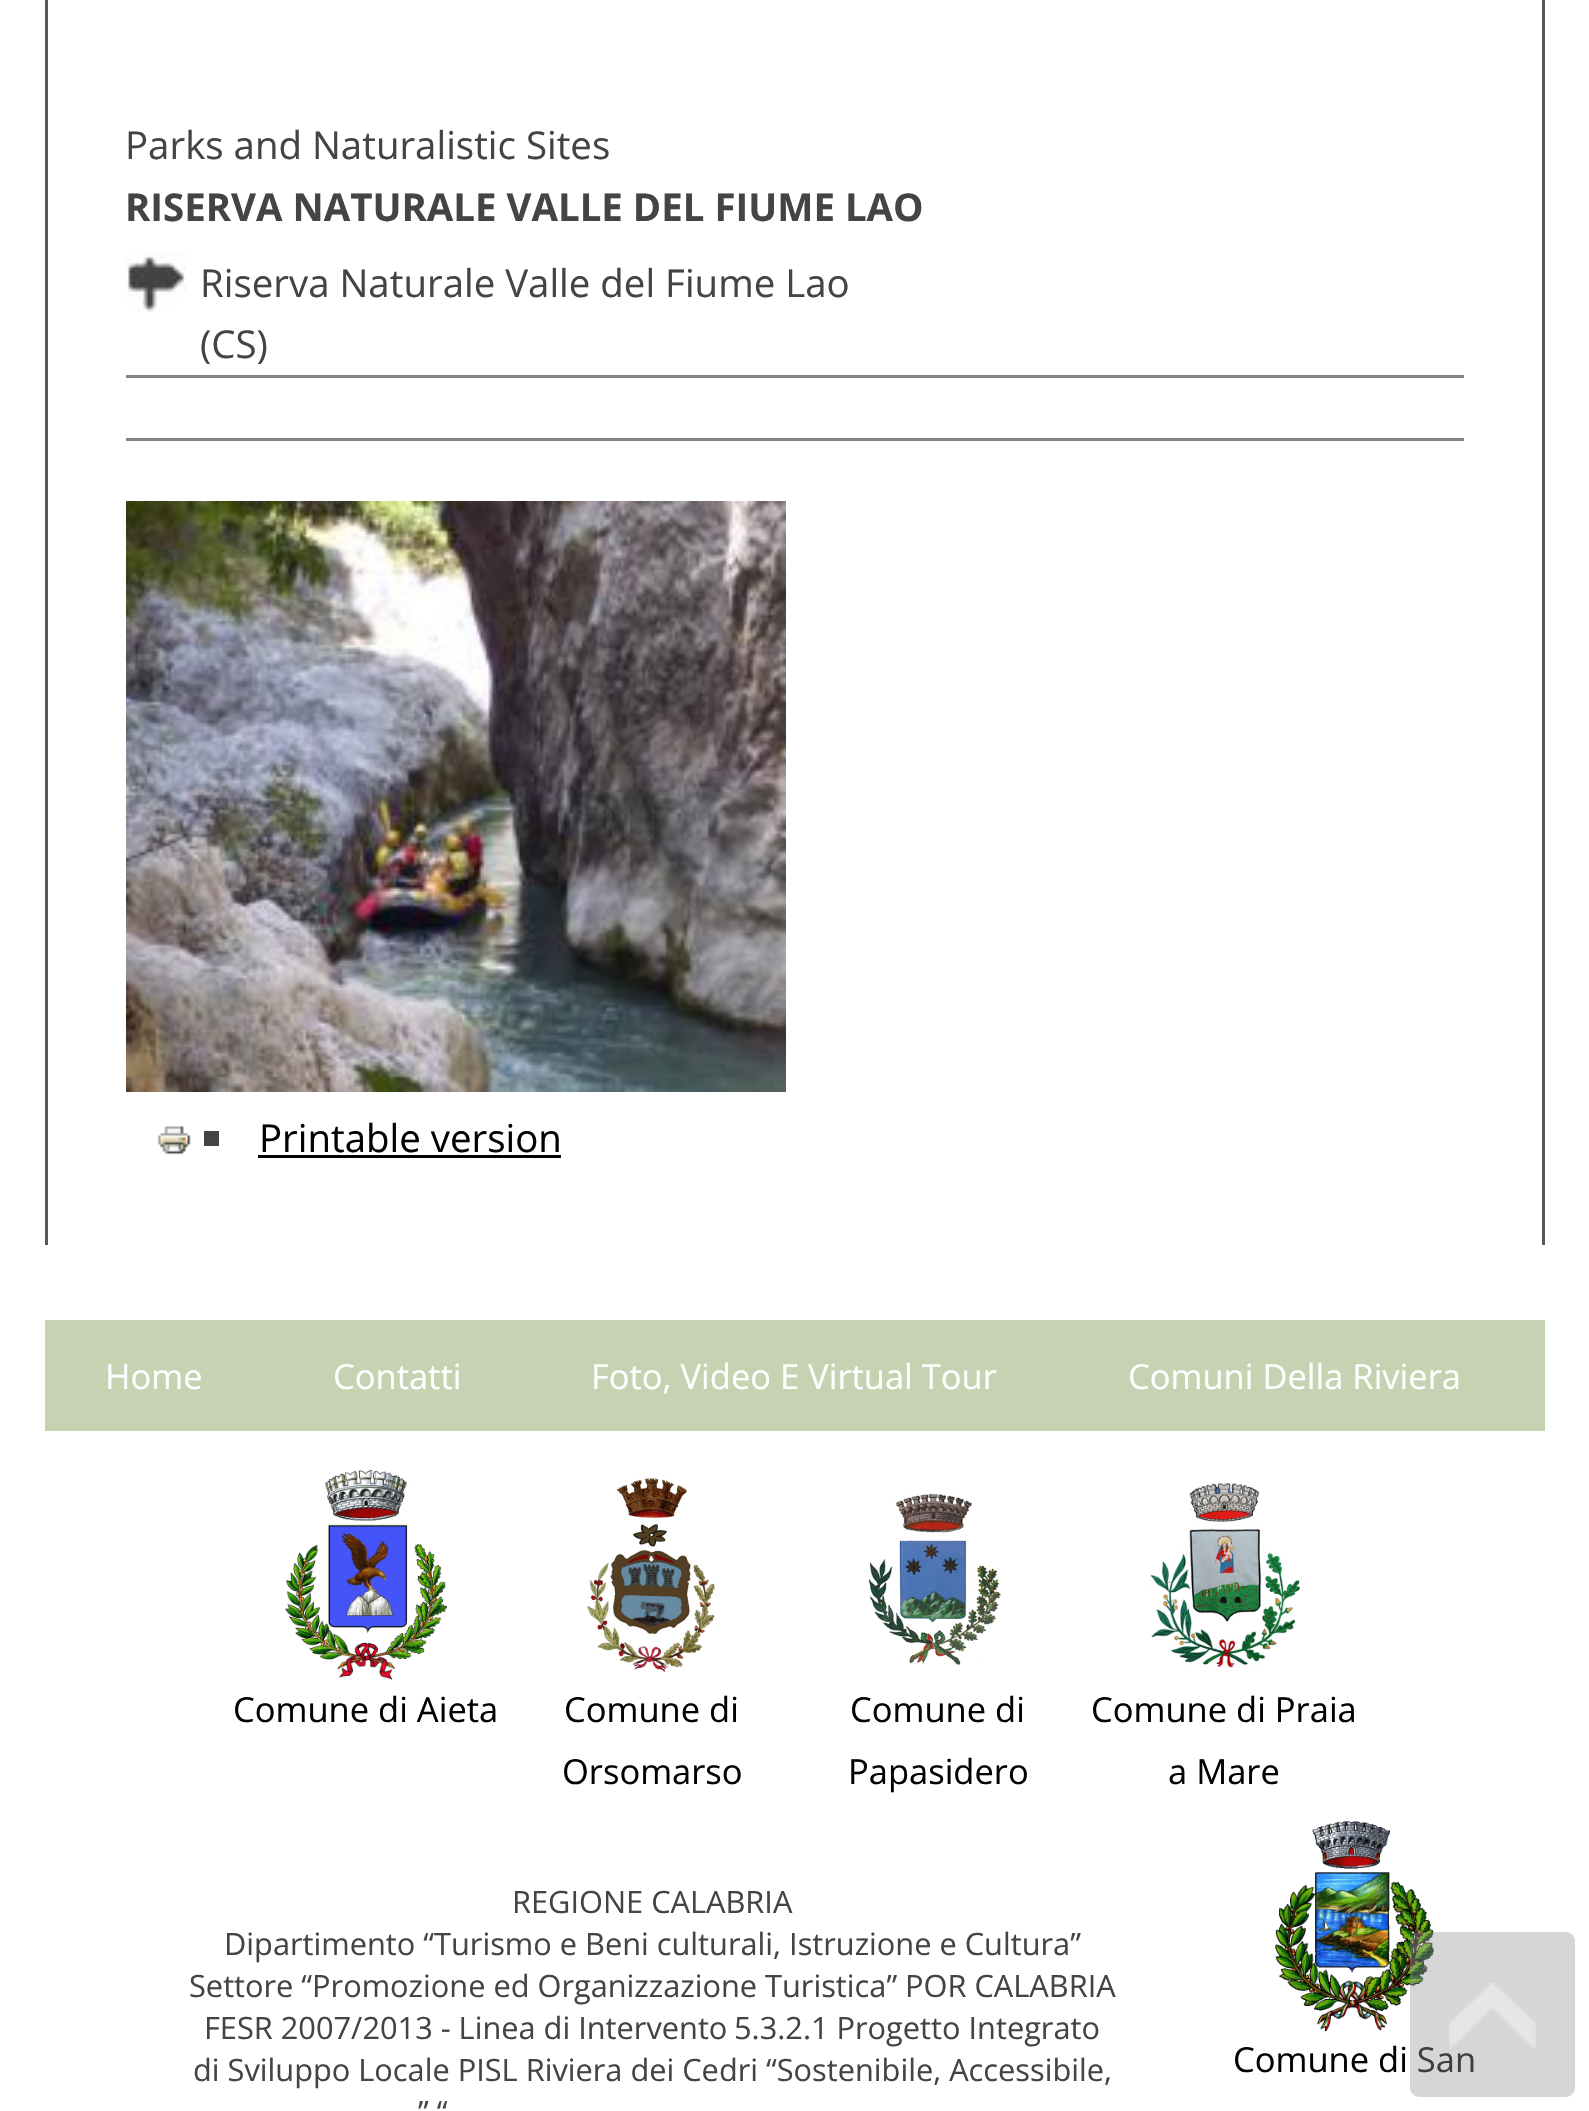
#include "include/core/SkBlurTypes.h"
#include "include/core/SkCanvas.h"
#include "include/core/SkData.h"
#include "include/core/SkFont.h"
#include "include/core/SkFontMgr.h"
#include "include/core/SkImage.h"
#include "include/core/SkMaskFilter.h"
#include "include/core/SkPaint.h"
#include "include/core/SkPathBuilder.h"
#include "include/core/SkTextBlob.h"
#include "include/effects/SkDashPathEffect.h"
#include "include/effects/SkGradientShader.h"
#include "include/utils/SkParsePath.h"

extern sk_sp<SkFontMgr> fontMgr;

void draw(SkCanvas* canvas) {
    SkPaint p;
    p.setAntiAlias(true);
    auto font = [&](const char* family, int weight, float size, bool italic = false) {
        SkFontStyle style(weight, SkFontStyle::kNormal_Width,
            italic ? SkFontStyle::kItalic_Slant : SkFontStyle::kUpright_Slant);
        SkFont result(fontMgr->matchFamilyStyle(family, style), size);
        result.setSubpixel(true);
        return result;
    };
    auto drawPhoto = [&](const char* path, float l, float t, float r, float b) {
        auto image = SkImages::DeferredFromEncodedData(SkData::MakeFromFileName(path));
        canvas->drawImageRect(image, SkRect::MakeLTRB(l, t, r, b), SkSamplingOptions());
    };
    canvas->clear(0xFFFFFFFF);
    p.setColor(0xFF595959);
    canvas->drawRect(SkRect::MakeLTRB(1542, 0, 1545, 1245), p);
    canvas->drawRect(SkRect::MakeLTRB(45, 0, 48, 1245), p);
    auto font1 = font("Open Sans", 400, 38.4f);
    p.setColor(0xFF444444);
    canvas->drawString("Parks and Naturalistic Sites", 125, 159, font1, p);
    auto font2 = font("Open Sans", 700, 38.4f);
    canvas->drawString("RISERVA NATURALE VALLE DEL FIUME LAO", 125, 221, font2, p);
    drawPhoto("media/1.png", 126, 252, 186, 312);
    canvas->drawString("Riserva Naturale Valle del Fiume Lao", 200, 297, font1, p);
    canvas->drawString("(CS)", 200, 358, font1, p);
    p.setColor(0xFF838383);
    canvas->drawRect(SkRect::MakeLTRB(126, 375, 1464, 378), p);
    canvas->drawRect(SkRect::MakeLTRB(126, 438, 1464, 441), p);
    drawPhoto("media/2.png", 126, 501, 786, 1092);
    p.setColor(0xFF444444);
    canvas->drawRect(SkRect::MakeLTRB(204, 1131, 219, 1146), p);
    drawPhoto("media/3.png", 157, 1126, 191, 1155);
    p.setColor(0xFF020202);
    canvas->drawString("Printable version", 259, 1152, font1, p);
    canvas->drawRect(SkRect::MakeLTRB(258, 1155, 561, 1158), p);
    p.setColor(0xFFC7D2B3);
    canvas->drawRect(SkRect::MakeLTRB(45, 1320, 1545, 1431), p);
    auto font3 = font("Open Sans", 400, 34.5f);
    p.setColor(0xFFFFFFFF);
    {
        const struct { const char* s; float x, y; } items[] = {
            {"Home", 105, 1389},
            {"Contatti", 333, 1389},
            {"Foto, Video E Virtual Tour", 591, 1389},
            {"Comuni Della Riviera", 1128, 1389},
        };
        for (auto [s, x, y] : items) {
            canvas->drawString(s, x, y, font3, p);
        }
    }
    drawPhoto("media/4.png", 285, 1470, 447, 1680);
    p.setColor(0xFF020202);
    canvas->drawString("Comune di Aieta", 233, 1722, font3, p);
    drawPhoto("media/5.png", 587, 1477, 716, 1673);
    canvas->drawString("Comune di", 564, 1722, font3, p);
    canvas->drawString("Orsomarso", 562, 1784, font3, p);
    drawPhoto("media/6.png", 868, 1484, 1001, 1665);
    canvas->drawString("Comune di", 850, 1722, font3, p);
    canvas->drawString("Papasidero", 848, 1784, font3, p);
    drawPhoto("media/7.png", 1150, 1482, 1300, 1668);
    canvas->drawString("Comune di Praia", 1091, 1722, font3, p);
    canvas->drawString("a Mare", 1168, 1784, font3, p);
    auto font4 = font("Open Sans", 400, 30.75f);
    p.setColor(0xFF444444);
    {
        const struct { const char* s; float x, y; } items[] = {
            {"REGIONE CALABRIA", 512, 1913},
            {"Dipartimento “Turismo e Beni culturali, Istruzione e Cultura”", 224, 1955},
            {"Settore “Promozione ed Organizzazione Turistica” POR CALABRIA", 189, 1997},
            {"FESR 2007/2013 - Linea di Intervento", 204, 2039},
            {"5.3.2.1 Progetto Integrato", 734, 2039},
            {"di Sviluppo Locale PISL Riviera dei Cedri “Sostenibile, Accessibile,", 193, 2081},
            {"” “", 418, 2123},
        };
        for (auto [s, x, y] : items) {
            canvas->drawString(s, x, y, font4, p);
        }
    }
    drawPhoto("media/8.png", 1275, 1821, 1434, 2031);
    p.setColor(0xFF020202);
    canvas->drawString("Comune di San", 1233, 2072, font3, p);
    p.setColor(0x66999999);
    canvas->drawRoundRect(SkRect::MakeLTRB(1410, 1932, 1575, 2097), 9, 9, p);
    drawPhoto("media/9.png", 1449, 1983, 1536, 2049);
}
